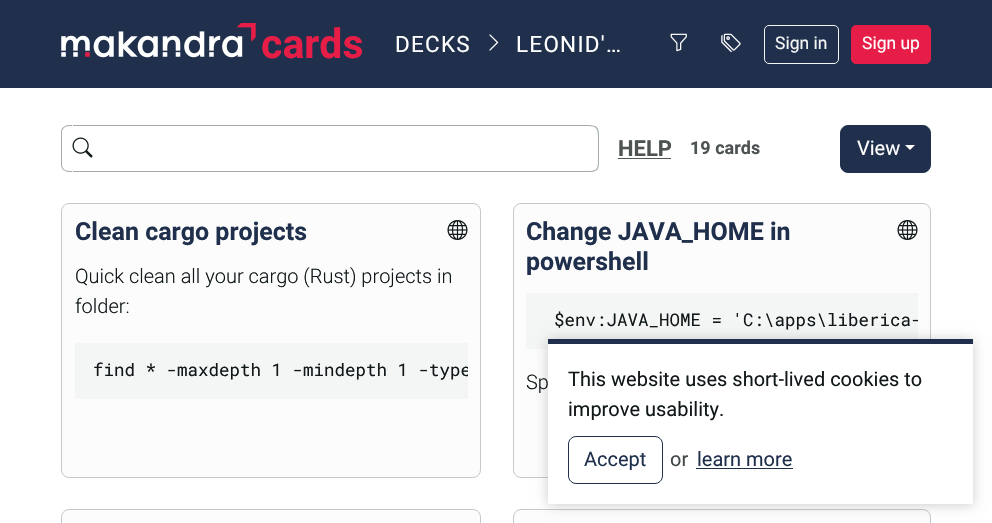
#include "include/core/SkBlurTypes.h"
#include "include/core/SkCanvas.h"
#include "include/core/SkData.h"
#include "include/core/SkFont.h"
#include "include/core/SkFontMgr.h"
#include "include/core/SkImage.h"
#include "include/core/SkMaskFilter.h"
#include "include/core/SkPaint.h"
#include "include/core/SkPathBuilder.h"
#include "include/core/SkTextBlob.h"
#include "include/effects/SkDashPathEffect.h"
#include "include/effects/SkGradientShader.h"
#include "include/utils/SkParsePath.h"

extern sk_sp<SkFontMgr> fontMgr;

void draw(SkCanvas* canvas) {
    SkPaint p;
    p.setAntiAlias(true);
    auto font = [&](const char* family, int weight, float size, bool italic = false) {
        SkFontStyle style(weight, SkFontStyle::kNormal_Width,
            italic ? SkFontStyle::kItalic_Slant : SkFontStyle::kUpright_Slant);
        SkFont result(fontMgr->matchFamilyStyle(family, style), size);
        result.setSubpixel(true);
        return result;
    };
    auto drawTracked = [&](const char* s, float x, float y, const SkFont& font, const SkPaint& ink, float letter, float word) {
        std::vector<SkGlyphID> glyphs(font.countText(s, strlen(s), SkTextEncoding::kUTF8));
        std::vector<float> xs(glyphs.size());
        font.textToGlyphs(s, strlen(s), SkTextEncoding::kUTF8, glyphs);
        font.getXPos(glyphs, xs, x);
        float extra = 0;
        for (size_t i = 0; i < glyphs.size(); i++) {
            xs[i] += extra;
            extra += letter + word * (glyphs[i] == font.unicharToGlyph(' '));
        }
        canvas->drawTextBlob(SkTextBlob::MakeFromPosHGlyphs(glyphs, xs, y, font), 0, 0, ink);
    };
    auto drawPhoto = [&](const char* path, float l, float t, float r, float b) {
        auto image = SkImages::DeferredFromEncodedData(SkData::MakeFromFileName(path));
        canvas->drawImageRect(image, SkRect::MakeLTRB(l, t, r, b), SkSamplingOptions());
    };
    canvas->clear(0xFFFFFFFF);
    p.setColor(0xFF20304C);
    canvas->drawRect(SkRect::MakeLTRB(0, 0, 992, 88), p);
    drawPhoto("media/1.png", 61, 23, 256, 58);
    auto font1 = font("Roboto", 700, 41);
    p.setColor(0xFFE61D47);
    canvas->drawString("cards", 261, 58, font1, p);
    auto font2 = font("Roboto", 400, 22.5f);
    p.setColor(0xFFFFFFFF);
    drawTracked("DECKS", 395, 52, font2, p, 1.25f, 0);
    drawPhoto("media/2.png", 489, 34, 499, 51);
    drawTracked("LEONID'…", 516, 52, font2, p, 1.25f, 0);
    drawPhoto("media/3.png", 670, 33, 687, 52);
    drawPhoto("media/4.png", 721, 33, 741, 52);
    p.setStyle(SkPaint::kStroke_Style);
    p.setStrokeWidth(1);
    p.setColor(0xFFF4F5F5);
    canvas->drawRoundRect(SkRect::MakeLTRB(764.5f, 25.5f, 838.5f, 63.5f), 4.5f, 4.5f, p);
    auto font3 = font("Roboto", 400, 17.5f);
    p.setStyle(SkPaint::kFill_Style);
    canvas->drawString("Sign in", 775, 49, font3, p);
    p.setColor(0xFFE61D47);
    canvas->drawRoundRect(SkRect::MakeLTRB(851.5f, 25.5f, 930.5f, 63.5f), 4.5f, 4.5f, p);
    p.setStyle(SkPaint::kStroke_Style);
    canvas->drawRoundRect(SkRect::MakeLTRB(851.5f, 25.5f, 930.5f, 63.5f), 4.5f, 4.5f, p);
    p.setStyle(SkPaint::kFill_Style);
    p.setColor(0xFFFFFFFF);
    canvas->drawString("Sign up", 862, 49, font3, p);
    p.setColor(0xFFA3ABAD);
    canvas->drawPath(SkPathBuilder(SkPathFillType::kEvenOdd).moveTo(69, 125).lineTo(72, 125).lineTo(72, 172).lineTo(69, 172).cubicTo(65, 172, 61, 169, 61, 165).lineTo(61, 132).cubicTo(61, 128, 65, 125, 69, 125).close().moveTo(69, 126).lineTo(72, 126).lineTo(72, 171).lineTo(69, 171).cubicTo(65, 171, 62, 168, 62, 165).lineTo(62, 132).cubicTo(62, 129, 65, 126, 69, 126).close().detach(), p);
    canvas->drawRect(SkRect::MakeLTRB(73, 125, 588, 126), p);
    canvas->drawRect(SkRect::MakeLTRB(73, 171, 588, 172), p);
    drawPhoto("media/5.png", 72, 137, 93, 158);
    canvas->drawPath(SkPathBuilder(SkPathFillType::kEvenOdd).moveTo(588, 125).cubicTo(598, 125, 599, 128, 599, 138).lineTo(599, 160).cubicTo(599, 170, 598, 172, 588, 172).close().moveTo(588, 126).cubicTo(597, 126, 598, 129, 598, 138).lineTo(598, 160).cubicTo(598, 169, 597, 171, 588, 171).close().detach(), p);
    auto font4 = font("Roboto", 700, 22);
    p.setColor(0xFF4D5253);
    canvas->drawString("HELP", 618, 156, font4, p);
    canvas->drawRect(SkRect::MakeLTRB(618, 158, 671, 159), p);
    auto font5 = font("Roboto", 700, 18);
    canvas->drawString("19 cards", 690, 154, font5, p);
    p.setColor(0xFF20304C);
    canvas->drawRoundRect(SkRect::MakeLTRB(840.5f, 125.5f, 930.5f, 172.5f), 7.5f, 7.5f, p);
    p.setStyle(SkPaint::kStroke_Style);
    canvas->drawRoundRect(SkRect::MakeLTRB(840.5f, 125.5f, 930.5f, 172.5f), 7.5f, 7.5f, p);
    auto font6 = font("Roboto", 400, 20);
    p.setStyle(SkPaint::kFill_Style);
    p.setColor(0xFFFFFFFF);
    canvas->drawString("View", 857, 155, font6, p);
    canvas->drawPath(SkPathBuilder().moveTo(905, 145).lineTo(915, 145).lineTo(910, 150).close().detach(), p);
    p.setColor(0xFFFCFCFC);
    canvas->drawRoundRect(SkRect::MakeLTRB(61.5f, 203.5f, 480.5f, 477.5f), 7.5f, 7.5f, p);
    p.setStyle(SkPaint::kStroke_Style);
    p.setColor(0xFFC4C9CA);
    canvas->drawRoundRect(SkRect::MakeLTRB(61.5f, 203.5f, 480.5f, 477.5f), 7.5f, 7.5f, p);
    auto font7 = font("Roboto", 700, 25);
    p.setStyle(SkPaint::kFill_Style);
    p.setColor(0xFF20304C);
    canvas->drawString("Clean cargo projects", 75, 240, font7, p);
    drawPhoto("media/6.png", 447, 220, 468, 240);
    auto font8 = font("Roboto", 300, 20);
    p.setColor(0xFF11181A);
    canvas->drawString("Quick clean all your cargo (Rust) projects in", 75, 283, font8, p);
    canvas->drawString("folder:", 75, 313, font8, p);
    p.setColor(0xFFF4F5F5);
    canvas->drawRect(SkRect::MakeLTRB(75, 343, 468, 399), p);
    canvas->save();
    canvas->clipRect(SkRect::MakeLTRB(75, 343, 468, 399));
    auto font9 = font("Roboto Mono", 400, 17.5f);
    p.setColor(0xFF11181A);
    canvas->drawString("find * -maxdepth 1 -mindepth 1 -type", 93, 376, font9, p);
    canvas->restore();
    p.setColor(0xFFFCFCFC);
    canvas->drawRoundRect(SkRect::MakeLTRB(513.5f, 203.5f, 930.5f, 477.5f), 7.5f, 7.5f, p);
    p.setStyle(SkPaint::kStroke_Style);
    p.setColor(0xFFC4C9CA);
    canvas->drawRoundRect(SkRect::MakeLTRB(513.5f, 203.5f, 930.5f, 477.5f), 7.5f, 7.5f, p);
    p.setStyle(SkPaint::kFill_Style);
    p.setColor(0xFF20304C);
    canvas->drawString("Change JAVA_HOME in", 526, 240, font7, p);
    canvas->drawString("powershell", 526, 270, font7, p);
    drawPhoto("media/6.png", 897, 220, 918, 240);
    p.setColor(0xFFF4F5F5);
    canvas->drawRect(SkRect::MakeLTRB(526, 293, 918, 349), p);
    canvas->save();
    canvas->clipRect(SkRect::MakeLTRB(526, 293, 918, 349));
    p.setColor(0xFF11181A);
    canvas->drawString("$env:JAVA_HOME = 'C:\\apps\\liberica-", 554, 326, font9, p);
    canvas->restore();
    canvas->drawString("Sp", 526, 389, font8, p);
    p.setColor(0xFFFCFCFC);
    canvas->drawRoundRect(SkRect::MakeLTRB(61.5f, 509.5f, 480.5f, 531.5f), 7.5f, 7.5f, p);
    p.setStyle(SkPaint::kStroke_Style);
    p.setColor(0xFFC4C9CA);
    canvas->drawRoundRect(SkRect::MakeLTRB(61.5f, 509.5f, 480.5f, 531.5f), 7.5f, 7.5f, p);
    p.setStyle(SkPaint::kFill_Style);
    p.setColor(0xFFFCFCFC);
    canvas->drawRoundRect(SkRect::MakeLTRB(513.5f, 509.5f, 930.5f, 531.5f), 7.5f, 7.5f, p);
    p.setStyle(SkPaint::kStroke_Style);
    p.setColor(0xFFC4C9CA);
    canvas->drawRoundRect(SkRect::MakeLTRB(513.5f, 509.5f, 930.5f, 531.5f), 7.5f, 7.5f, p);
    p.setStyle(SkPaint::kFill_Style);
    p.setColor(0x33000000);
    p.setMaskFilter(SkMaskFilter::MakeBlur(kNormal_SkBlurStyle, 6));
    canvas->drawRect(SkRect::MakeLTRB(548, 340, 973, 505), p);
    p.setMaskFilter(nullptr);
    p.setColor(0xFFFFFFFF);
    canvas->drawRect(SkRect::MakeLTRB(548, 344, 973, 504), p);
    p.setColor(0xFF20304C);
    canvas->drawRect(SkRect::MakeLTRB(548, 339, 973, 344), p);
    p.setColor(0xFF11181A);
    canvas->drawString("This website uses short-lived cookies to", 568, 386, font6, p);
    canvas->drawString("improve usability.", 568, 416, font6, p);
    p.setStyle(SkPaint::kStroke_Style);
    p.setColor(0xFF20304C);
    canvas->drawRoundRect(SkRect::MakeLTRB(568.5f, 436.5f, 662.5f, 483.5f), 7.5f, 7.5f, p);
    p.setStyle(SkPaint::kFill_Style);
    canvas->drawString("Accept", 584, 466, font6, p);
    p.setColor(0xFF414648);
    canvas->drawString("or", 670, 466, font6, p);
    p.setColor(0xFF20304C);
    canvas->drawString("learn more", 697, 466, font6, p);
    canvas->drawRect(SkRect::MakeLTRB(696, 468, 793, 469), p);
}
